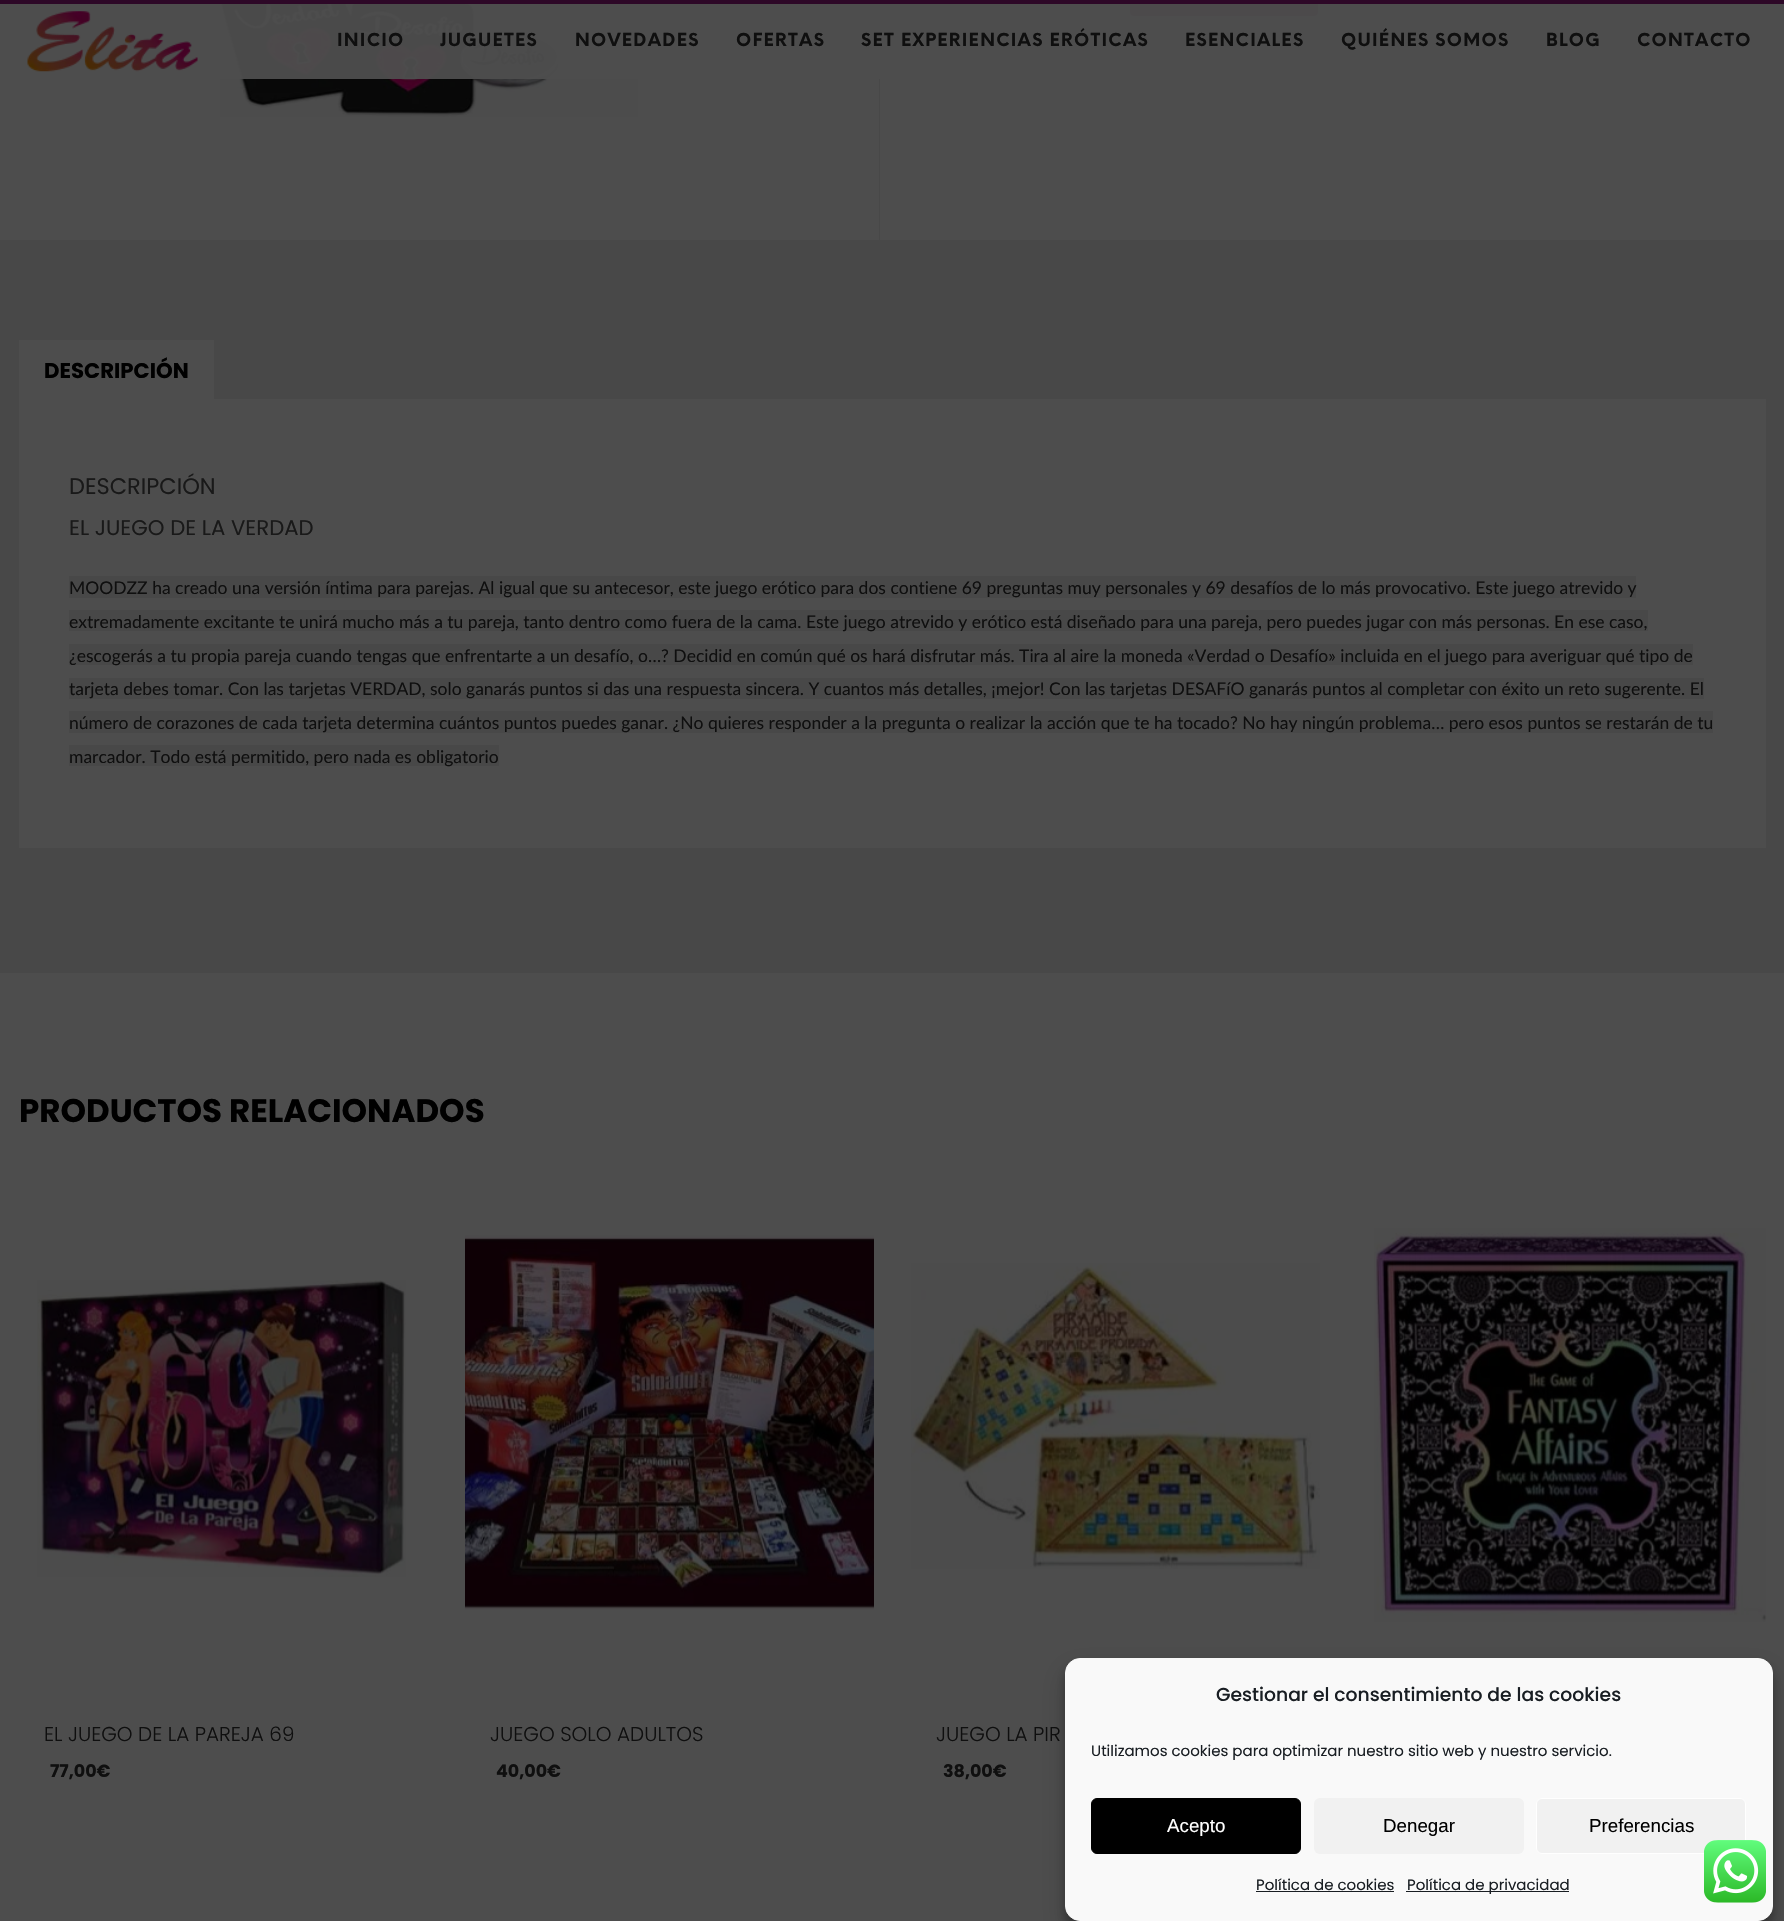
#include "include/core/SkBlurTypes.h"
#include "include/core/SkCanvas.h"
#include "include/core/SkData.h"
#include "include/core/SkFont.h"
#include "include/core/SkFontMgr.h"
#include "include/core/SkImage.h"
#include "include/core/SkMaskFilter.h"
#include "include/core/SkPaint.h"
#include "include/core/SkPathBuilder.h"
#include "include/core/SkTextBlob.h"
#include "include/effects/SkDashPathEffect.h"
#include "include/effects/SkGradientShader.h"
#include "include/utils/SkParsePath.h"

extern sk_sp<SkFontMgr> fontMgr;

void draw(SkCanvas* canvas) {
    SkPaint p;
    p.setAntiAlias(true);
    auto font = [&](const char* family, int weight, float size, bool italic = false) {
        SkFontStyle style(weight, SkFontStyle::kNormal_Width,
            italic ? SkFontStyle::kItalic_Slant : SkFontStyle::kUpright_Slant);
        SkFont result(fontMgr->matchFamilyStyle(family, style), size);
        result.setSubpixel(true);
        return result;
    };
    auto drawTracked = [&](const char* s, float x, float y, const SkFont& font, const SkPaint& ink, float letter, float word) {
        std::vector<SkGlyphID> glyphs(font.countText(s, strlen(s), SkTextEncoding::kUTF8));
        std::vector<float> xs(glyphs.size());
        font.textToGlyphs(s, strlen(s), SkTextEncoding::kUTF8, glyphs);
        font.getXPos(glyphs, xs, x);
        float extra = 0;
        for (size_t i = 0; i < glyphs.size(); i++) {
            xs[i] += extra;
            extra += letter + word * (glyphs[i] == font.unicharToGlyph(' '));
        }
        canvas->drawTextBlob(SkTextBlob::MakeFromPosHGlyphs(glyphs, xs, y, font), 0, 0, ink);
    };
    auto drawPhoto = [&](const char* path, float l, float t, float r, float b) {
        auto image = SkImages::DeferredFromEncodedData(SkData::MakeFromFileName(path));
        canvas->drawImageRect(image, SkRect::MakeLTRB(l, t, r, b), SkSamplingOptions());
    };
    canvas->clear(0xFF4D4D4D);
    drawPhoto("media/2.png", 220, 4, 638, 117);
    p.setColor(0xFF484848);
    canvas->drawRect(SkRect::MakeLTRB(879, 0, 880, 240), p);
    p.setColor(0xFF2D0827);
    canvas->drawRoundRect(SkRect::MakeLTRB(1130, -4, 1318, 16), 4, 4, p);
    p.setColor(0xF24D4D4D);
    canvas->drawRect(SkRect::MakeLTRB(220, 4, 1318, 79), p);
    p.setColor(0xFF2D0827);
    canvas->drawRect(SkRect::MakeLTRB(0, 0, 1784, 4), p);
    drawPhoto("media/1.png", 27, 11, 198, 72);
    auto font1 = font("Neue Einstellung", 700, 17.5f);
    p.setColor(0xFF0F0F0F);
    {
        const struct { const char* s; float x, y; } items[] = {
            {"INICIO", 337, 46},
            {"JUGUETES", 440, 46},
            {"NOVEDADES", 575, 46},
            {"OFERTAS", 736, 46},
            {"SET EXPERIENCIAS ERÓTICAS", 861, 46},
            {"ESENCIALES", 1185, 46},
            {"QUIÉNES SOMOS", 1341, 46},
            {"BLOG", 1546, 46},
            {"CONTACTO", 1637, 46},
        };
        for (auto [s, x, y] : items) {
            drawTracked(s, x, y, font1, p, 1.25f, 0);
        }
    }
    p.setColor(0xFF484848);
    canvas->drawRect(SkRect::MakeLTRB(0, 240, 1784, 973), p);
    p.setColor(0xFF4D4D4D);
    canvas->drawRect(SkRect::MakeLTRB(19, 340, 214, 399), p);
    auto font2 = font("Poppins", 700, 21.25f);
    p.setColor(0xFF000000);
    canvas->drawString("DESCRIPCIÓN", 44, 378, font2, p);
    p.setColor(0xFF4D4D4D);
    canvas->drawRect(SkRect::MakeLTRB(19, 399, 1766, 848), p);
    auto font3 = font("Poppins", 400, 22.5f);
    p.setColor(0xFF191919);
    canvas->drawString("DESCRIPCIÓN", 69, 494, font3, p);
    auto font4 = font("Poppins", 400, 21.25f);
    canvas->drawString("EL JUEGO DE LA VERDAD", 69, 535, font4, p);
    p.setColor(0xFF484848);
    canvas->drawRect(SkRect::MakeLTRB(69, 576, 1636, 598), p);
    auto font5 = font("Lato", 400, 17.5f);
    p.setColor(0xFF0F0F0F);
    canvas->drawString("MOODZZ ha creado una versión íntima para parejas. Al igual que su antecesor, este juego erótico para dos contiene 69 preguntas muy personales y 69 desafíos de lo más provocativo. Este juego atrevido y", 69, 594, font5, p);
    p.setColor(0xFF484848);
    canvas->drawRect(SkRect::MakeLTRB(69, 610, 1648, 631), p);
    p.setColor(0xFF0F0F0F);
    canvas->drawString("extremadamente excitante te unirá mucho más a tu pareja, tanto dentro como fuera de la cama. Este juego atrevido y erótico está diseñado para una pareja, pero puedes jugar con más personas. En ese caso,", 69, 628, font5, p);
    p.setColor(0xFF484848);
    canvas->drawRect(SkRect::MakeLTRB(69, 644, 1693, 665), p);
    p.setColor(0xFF0F0F0F);
    canvas->drawString("¿escogerás a tu propia pareja cuando tengas que enfrentarte a un desafío, o…? Decidid en común qué os hará disfrutar más. Tira al aire la moneda «Verdad o Desafío» incluida en el juego para averiguar qué tipo de", 69, 662, font5, p);
    p.setColor(0xFF484848);
    canvas->drawRect(SkRect::MakeLTRB(69, 678, 1704, 699), p);
    p.setColor(0xFF0F0F0F);
    canvas->drawString("tarjeta debes tomar. Con las tarjetas VERDAD, solo ganarás puntos si das una respuesta sincera. Y cuantos más detalles, ¡mejor! Con las tarjetas DESAFíO ganarás puntos al completar con éxito un reto sugerente. El", 69, 695, font5, p);
    p.setColor(0xFF484848);
    canvas->drawRect(SkRect::MakeLTRB(69, 711, 1713, 733), p);
    p.setColor(0xFF0F0F0F);
    canvas->drawString("número de corazones de cada tarjeta determina cuántos puntos puedes ganar. ¿No quieres responder a la pregunta o realizar la acción que te ha tocado? No hay ningún problema… pero esos puntos se restarán de tu", 69, 729, font5, p);
    p.setColor(0xFF484848);
    canvas->drawRect(SkRect::MakeLTRB(69, 745, 499, 766), p);
    p.setColor(0xFF0F0F0F);
    canvas->drawString("marcador. Todo está permitido, pero nada es obligatorio", 69, 763, font5, p);
    auto font6 = font("Poppins", 700, 32.5f);
    p.setColor(0xFF000000);
    canvas->drawString("PRODUCTOS RELACIONADOS", 19, 1122, font6, p);
    drawPhoto("media/3.png", 1374, 1228, 1767, 1622);
    drawPhoto("media/4.png", 37, 1280, 406, 1577);
    auto font7 = font("Poppins", 300, 20);
    p.setColor(0xFF0F0F0F);
    canvas->drawString("EL JUEGO DE LA PAREJA 69", 44, 1741, font7, p);
    auto font8 = font("Poppins", 700, 17.5f);
    canvas->drawString("77,00€", 50, 1777, font8, p);
    drawPhoto("media/5.png", 465, 1235, 874, 1610);
    canvas->drawString("JUEGO SOLO ADULTOS", 490, 1741, font7, p);
    canvas->drawString("40,00€", 496, 1777, font8, p);
    drawPhoto("media/6.png", 911, 1263, 1320, 1569);
    canvas->drawString("JUEGO LA PIR", 936, 1741, font7, p);
    canvas->drawString("38,00€", 943, 1777, font8, p);
    p.setColor(0x3B000000);
    p.setMaskFilter(SkMaskFilter::MakeBlur(kNormal_SkBlurStyle, 4));
    canvas->drawRoundRect(SkRect::MakeLTRB(1065, 1665, 1773, 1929), 15, 15, p);
    p.setMaskFilter(nullptr);
    p.setColor(0x30000000);
    p.setMaskFilter(SkMaskFilter::MakeBlur(kNormal_SkBlurStyle, 12.5f));
    canvas->drawRoundRect(SkRect::MakeLTRB(1065, 1670, 1773, 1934), 15, 15, p);
    p.setMaskFilter(nullptr);
    p.setColor(0xFFF9F9F9);
    canvas->drawRoundRect(SkRect::MakeLTRB(1065.5f, 1658.5f, 1772.5f, 1920.5f), 14.5f, 14.5f, p);
    p.setStyle(SkPaint::kStroke_Style);
    p.setStrokeWidth(1);
    canvas->drawRoundRect(SkRect::MakeLTRB(1065.5f, 1658.5f, 1772.5f, 1920.5f), 14.5f, 14.5f, p);
    auto font9 = font("Poppins", 500, 18.75f);
    p.setStyle(SkPaint::kFill_Style);
    p.setColor(0xFF191E23);
    canvas->drawString("Gestionar el consentimiento de las cookies", 1216, 1701, font9, p);
    auto font10 = font("Poppins", 400, 15);
    canvas->drawString("Utilizamos cookies para optimizar nuestro sitio web y nuestro servicio.", 1091, 1756, font10, p);
    p.setColor(0xFF000000);
    canvas->drawRoundRect(SkRect::MakeLTRB(1091.5f, 1798.5f, 1300.5f, 1853.5f), 5.5f, 5.5f, p);
    p.setStyle(SkPaint::kStroke_Style);
    canvas->drawRoundRect(SkRect::MakeLTRB(1091.5f, 1798.5f, 1300.5f, 1853.5f), 5.5f, 5.5f, p);
    auto font11 = font("Liberation Sans", 400, 18.75f);
    p.setStyle(SkPaint::kFill_Style);
    p.setColor(0xFFFFFFFF);
    canvas->drawString("Acepto", 1167, 1832, font11, p);
    p.setColor(0xFFF1F1F1);
    canvas->drawRoundRect(SkRect::MakeLTRB(1314, 1798, 1524, 1854), 6, 6, p);
    p.setColor(0xFF000000);
    canvas->drawString("Denegar", 1383, 1832, font11, p);
    p.setColor(0xFFF1F1F1);
    canvas->drawRoundRect(SkRect::MakeLTRB(1536.5f, 1798.5f, 1745.5f, 1853.5f), 5.5f, 5.5f, p);
    p.setStyle(SkPaint::kStroke_Style);
    p.setColor(0xFFFFFFFF);
    canvas->drawRoundRect(SkRect::MakeLTRB(1536.5f, 1798.5f, 1745.5f, 1853.5f), 5.5f, 5.5f, p);
    p.setStyle(SkPaint::kFill_Style);
    p.setColor(0xFF000000);
    canvas->drawString("Preferencias", 1589, 1832, font11, p);
    p.setColor(0xFF191E23);
    canvas->drawString("Política de cookies", 1256, 1890, font10, p);
    canvas->drawRect(SkRect::MakeLTRB(1256, 1891, 1394, 1892), p);
    canvas->drawRect(SkRect::MakeLTRB(1406, 1891, 1569, 1892), p);
    canvas->drawString("Política de privacidad", 1407, 1890, font10, p);
    drawPhoto("media/7.png", 1704, 1840, 1766, 1903);
}
